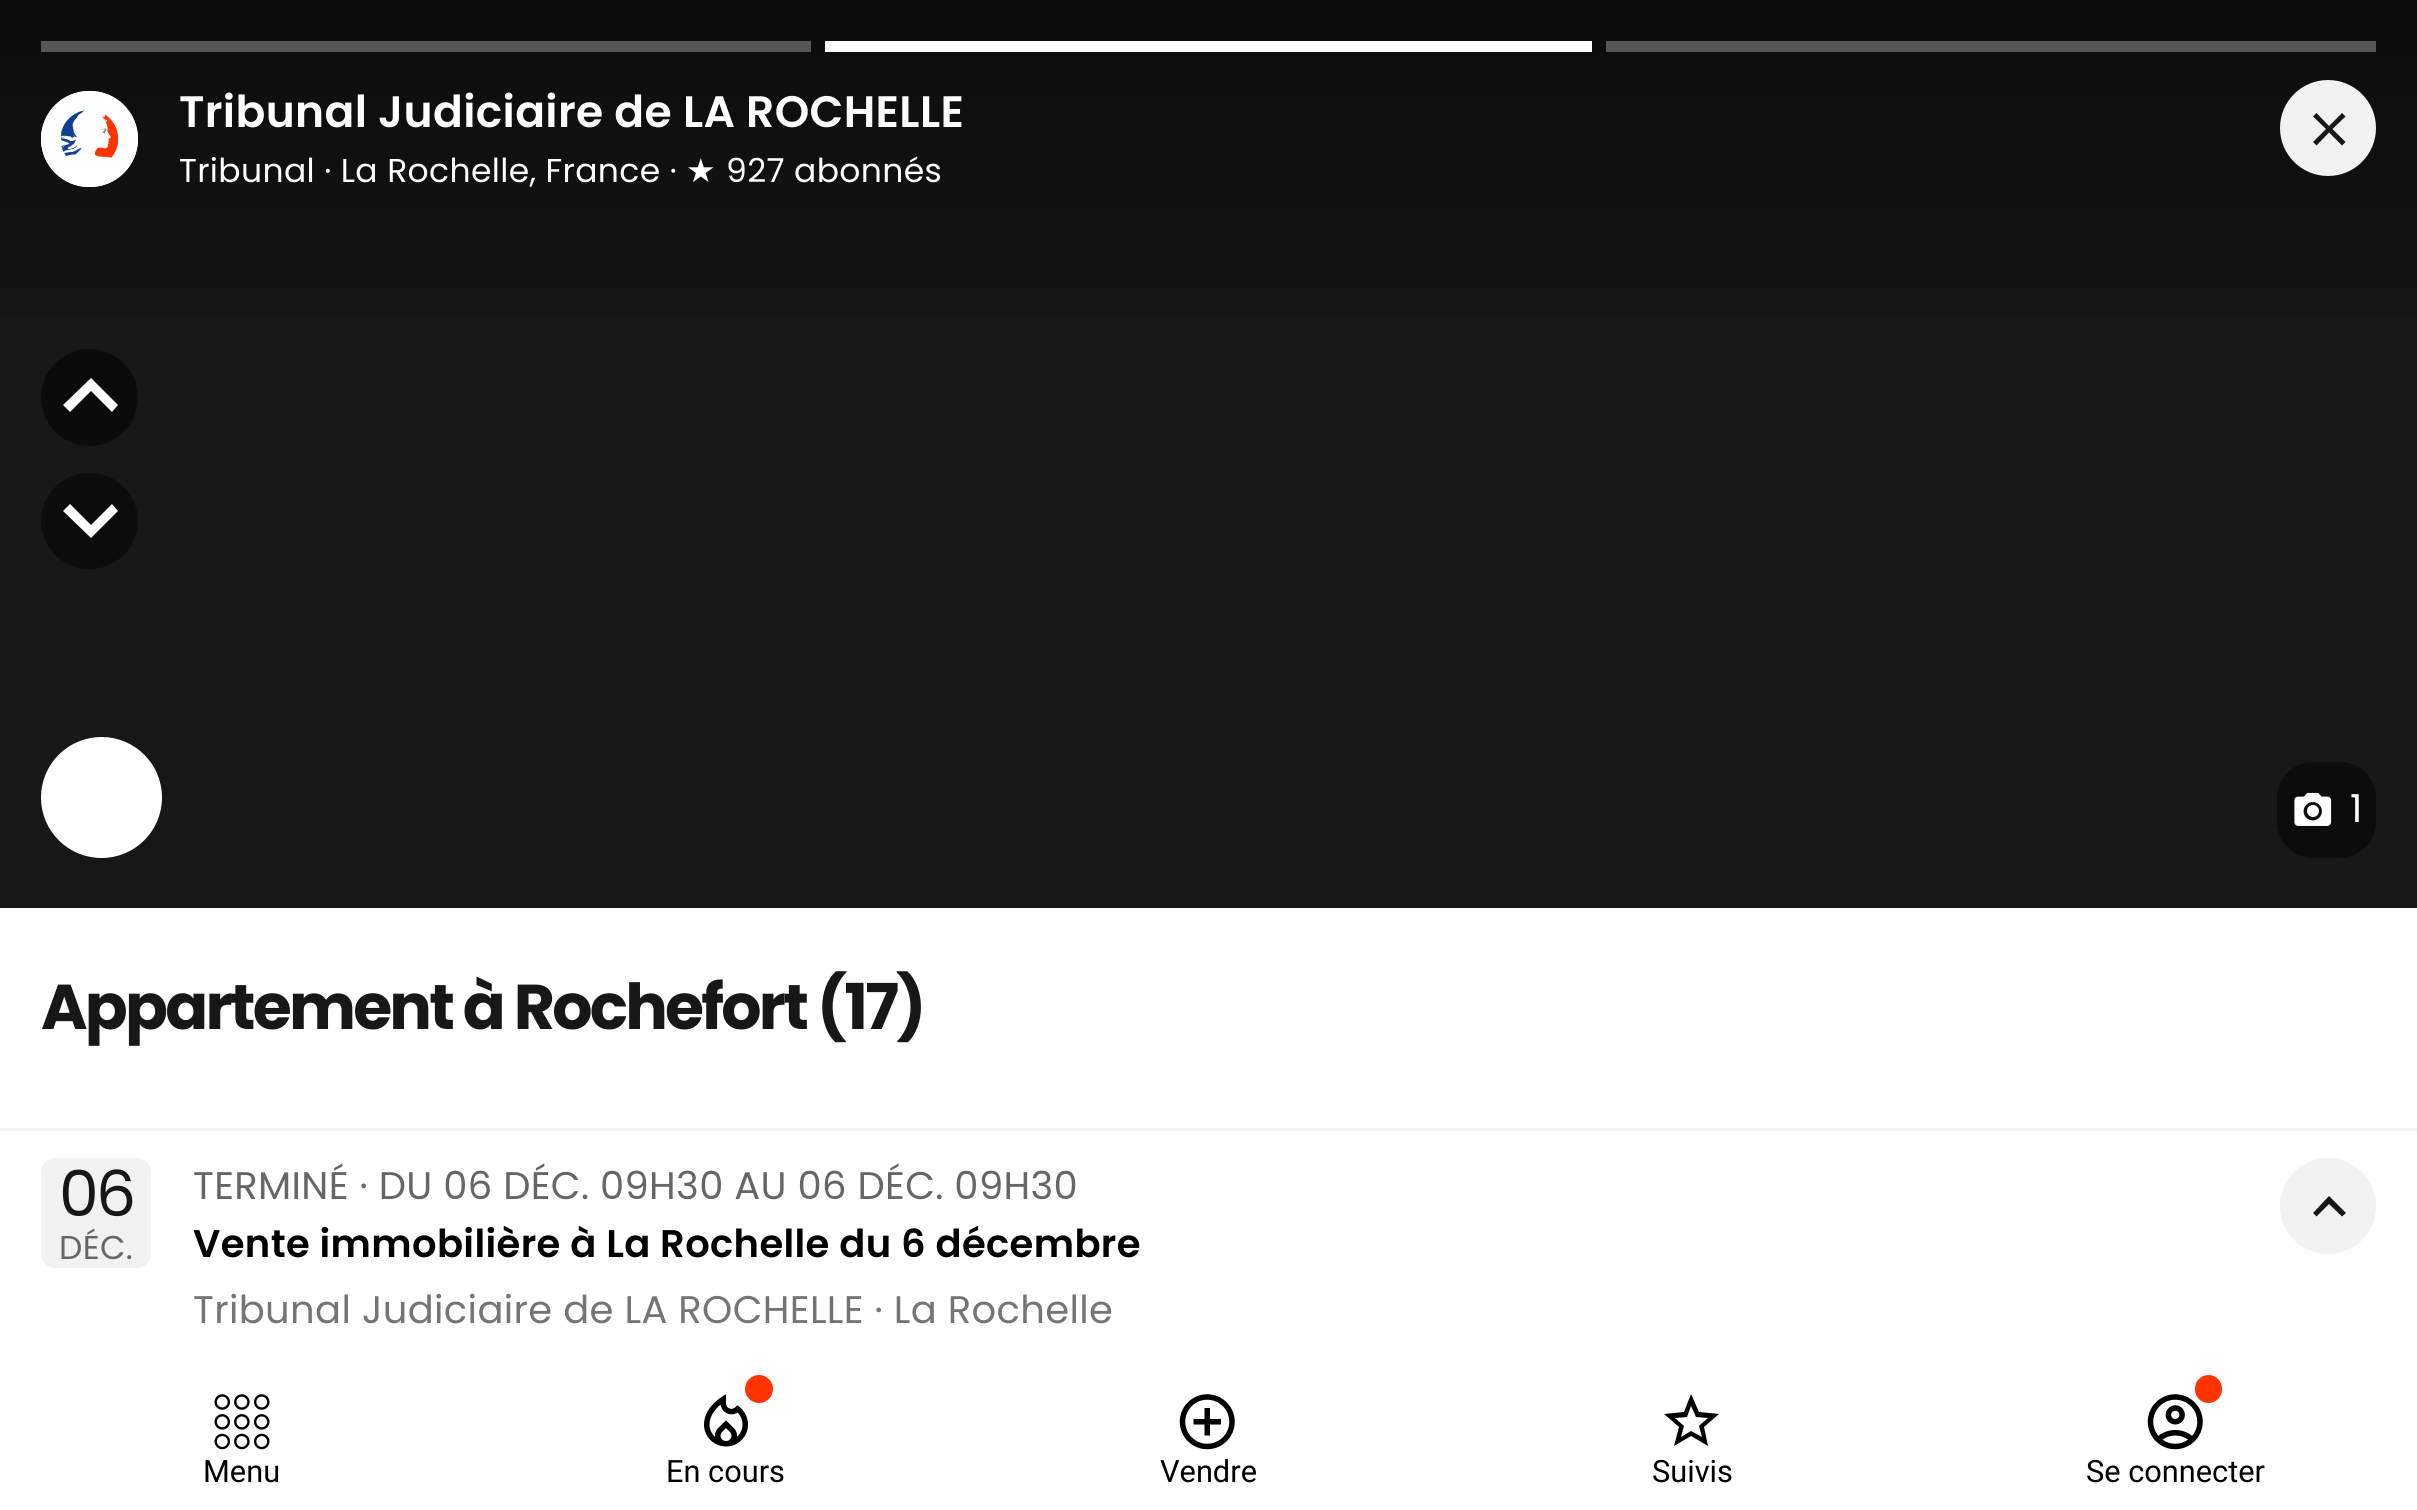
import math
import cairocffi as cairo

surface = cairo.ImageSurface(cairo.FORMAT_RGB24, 2417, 1510)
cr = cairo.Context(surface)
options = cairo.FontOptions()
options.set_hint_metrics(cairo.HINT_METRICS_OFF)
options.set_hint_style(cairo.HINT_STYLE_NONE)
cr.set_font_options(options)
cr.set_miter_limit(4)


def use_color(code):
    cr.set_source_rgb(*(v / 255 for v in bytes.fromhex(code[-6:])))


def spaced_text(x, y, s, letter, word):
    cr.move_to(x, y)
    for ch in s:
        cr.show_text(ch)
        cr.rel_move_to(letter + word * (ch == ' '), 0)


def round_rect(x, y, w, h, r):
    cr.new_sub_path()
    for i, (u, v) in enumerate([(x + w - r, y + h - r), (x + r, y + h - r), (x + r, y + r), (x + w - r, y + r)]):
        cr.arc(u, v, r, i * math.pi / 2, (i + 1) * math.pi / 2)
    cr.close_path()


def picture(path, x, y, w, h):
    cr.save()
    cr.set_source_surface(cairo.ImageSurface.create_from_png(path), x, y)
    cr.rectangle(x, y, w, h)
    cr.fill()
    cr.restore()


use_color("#171717")
cr.paint()
gradient = cairo.LinearGradient(1209, 413, 1209, 0)
gradient.add_color_stop_rgba(0, 0.09, 0.09, 0.09, 1)
gradient.add_color_stop_rgba(1, 0.047, 0.047, 0.047, 1)
cr.set_source(gradient)
cr.rectangle(0, 0, 2417, 319)
cr.fill()
use_color("#565656")
cr.rectangle(41, 41, 770, 11)
cr.fill()
use_color("#ffffff")
cr.rectangle(825, 41, 767, 11)
cr.fill()
use_color("#565656")
cr.rectangle(1606, 41, 770, 11)
cr.fill()
use_color("#ffffff")
round_rect(41, 91, 97, 96, 48)
cr.fill()
picture("img1.png", 61, 110, 57, 48)
round_rect(42.5, 92.5, 94, 93, 46.5)
cr.set_line_width(3)
cr.stroke()
cr.select_font_face("Poppins SemiBold")
cr.set_font_size(44)
spaced_text(179, 127, "Tribunal Judiciaire de LA ROCHELLE", 0.35, 0)
cr.select_font_face("Poppins")
cr.set_font_size(33)
spaced_text(179, 182, "Tribunal · La Rochelle, France ·", 0.35, 0)
cr.select_font_face("DejaVu Sans")
spaced_text(686, 182, "★", 0.35, 0)
cr.select_font_face("Poppins")
spaced_text(726, 182, "927 abonnés", 0.35, 0)
use_color("#f2f2f2")
cr.new_path()
cr.arc(2328, 128, 48, 0, 2 * math.pi)
cr.fill()
use_color("#171717")
cr.new_path()
cr.move_to(2345.5, 116.5)
cr.line_to(2342, 113)
cr.line_to(2329, 126)
cr.line_to(2316.5, 113)
cr.line_to(2313, 116.5)
cr.line_to(2326, 129)
cr.line_to(2313, 142)
cr.line_to(2316.5, 145.5)
cr.line_to(2329, 132.5)
cr.line_to(2342, 145.5)
cr.line_to(2345.5, 142)
cr.line_to(2332.5, 129)
cr.close_path()
cr.fill()
use_color("#0b0b0b")
cr.arc(89.5, 397.5, 48.5, 0, 2 * math.pi)
cr.fill()
use_color("#ffffff")
cr.new_path()
cr.move_to(70, 412)
cr.line_to(91, 391)
cr.line_to(112, 412)
cr.line_to(118, 405)
cr.line_to(91, 378)
cr.line_to(63, 405)
cr.close_path()
cr.fill()
use_color("#0c0c0c")
round_rect(41, 473, 97, 96, 48)
cr.fill()
use_color("#ffffff")
cr.new_path()
cr.move_to(70, 504)
cr.line_to(91, 525)
cr.line_to(112, 504)
cr.line_to(118, 511)
cr.line_to(91, 538)
cr.line_to(63, 511)
cr.close_path()
cr.fill()
cr.arc(101.5, 797.5, 57.5, 0, 2 * math.pi)
cr.fill_preserve()
cr.set_line_width(6)
cr.stroke()
use_color("#0c0c0c")
round_rect(2277, 762, 99, 96, 36)
cr.fill()
picture("img2.png", 2294, 792, 38, 34)
cr.set_font_size(38.5)
use_color("#ffffff")
spaced_text(2350, 822, "1", 0.35, 0)
cr.rectangle(0, 908, 2417, 220)
cr.fill()
cr.select_font_face("Poppins", cairo.FONT_SLANT_NORMAL, cairo.FONT_WEIGHT_BOLD)
cr.set_font_size(63.25)
use_color("#171717")
spaced_text(41, 1029, "Appartement à Rochefort (17)", -2.75, 0)
use_color("#ffffff")
cr.rectangle(0, 1131, 2417, 379)
cr.fill()
use_color("#f2f2f2")
cr.rectangle(0, 1128, 2417, 3)
cr.fill()
round_rect(42.5, 1159.5, 107, 107, 12.5)
cr.fill_preserve()
cr.set_line_width(3)
cr.stroke()
cr.select_font_face("Poppins")
use_color("#171717")
spaced_text(59, 1216, "06", -2.75, 0)
cr.set_font_size(33)
use_color("#666666")
spaced_text(59, 1259, "DÉC.", 0.35, 0)
cr.set_font_size(38.5)
spaced_text(193, 1199, "TERMINÉ · DU 06 DÉC. 09H30 AU 06 DÉC. 09H30", 0.35, 0)
cr.select_font_face("Poppins SemiBold")
use_color("#000000")
spaced_text(193, 1257, "Vente immobilière à La Rochelle du 6 décembre", 0.35, 0)
cr.select_font_face("Poppins")
use_color("#757575")
spaced_text(193, 1323, "Tribunal Judiciaire de LA ROCHELLE · La Rochelle", 0.35, 0)
use_color("#f2f2f2")
cr.new_path()
cr.arc(2328, 1206, 48, 0, 2 * math.pi)
cr.fill()
use_color("#171717")
cr.new_path()
cr.move_to(2329, 1196)
cr.line_to(2313, 1213)
cr.line_to(2316.5, 1216.5)
cr.line_to(2329, 1204)
cr.line_to(2342, 1216.5)
cr.line_to(2346, 1213)
cr.close_path()
cr.fill()
picture("img3.png", 214, 1394, 56, 56)
cr.select_font_face("Roboto")
cr.set_font_size(30.75)
use_color("#000000")
cr.move_to(203, 1482)
cr.show_text("Menu")
picture("img4.png", 704, 1394, 44, 53)
use_color("#ff3401")
cr.arc(759, 1389, 14, 0, 2 * math.pi)
cr.fill()
use_color("#000000")
cr.move_to(666, 1482)
cr.show_text("En cours")
picture("img5.png", 1179, 1394, 56, 56)
cr.move_to(1160, 1482)
cr.show_text("Vendre")
cr.new_path()
cr.move_to(1719, 1414)
cr.line_to(1699, 1412)
cr.line_to(1691, 1394)
cr.line_to(1684, 1412)
cr.line_to(1664, 1414)
cr.line_to(1679, 1427)
cr.line_to(1674, 1446)
cr.line_to(1691, 1436)
cr.line_to(1708, 1446)
cr.line_to(1704, 1427)
cr.close_path()
cr.move_to(1691, 1431)
cr.line_to(1681, 1437)
cr.line_to(1684, 1426)
cr.line_to(1675, 1418)
cr.line_to(1687, 1417)
cr.line_to(1691, 1406)
cr.line_to(1696, 1417)
cr.line_to(1708, 1418)
cr.line_to(1699, 1426)
cr.line_to(1702, 1437)
cr.close_path()
cr.fill()
cr.move_to(1652, 1482)
cr.show_text("Suivis")
picture("img6.png", 2147, 1394, 56, 56)
use_color("#ff3401")
round_rect(2195, 1375, 27, 28, 13.5)
cr.fill()
use_color("#000000")
cr.move_to(2086, 1482)
cr.show_text("Se connecter")
surface.write_to_png("result.png")
